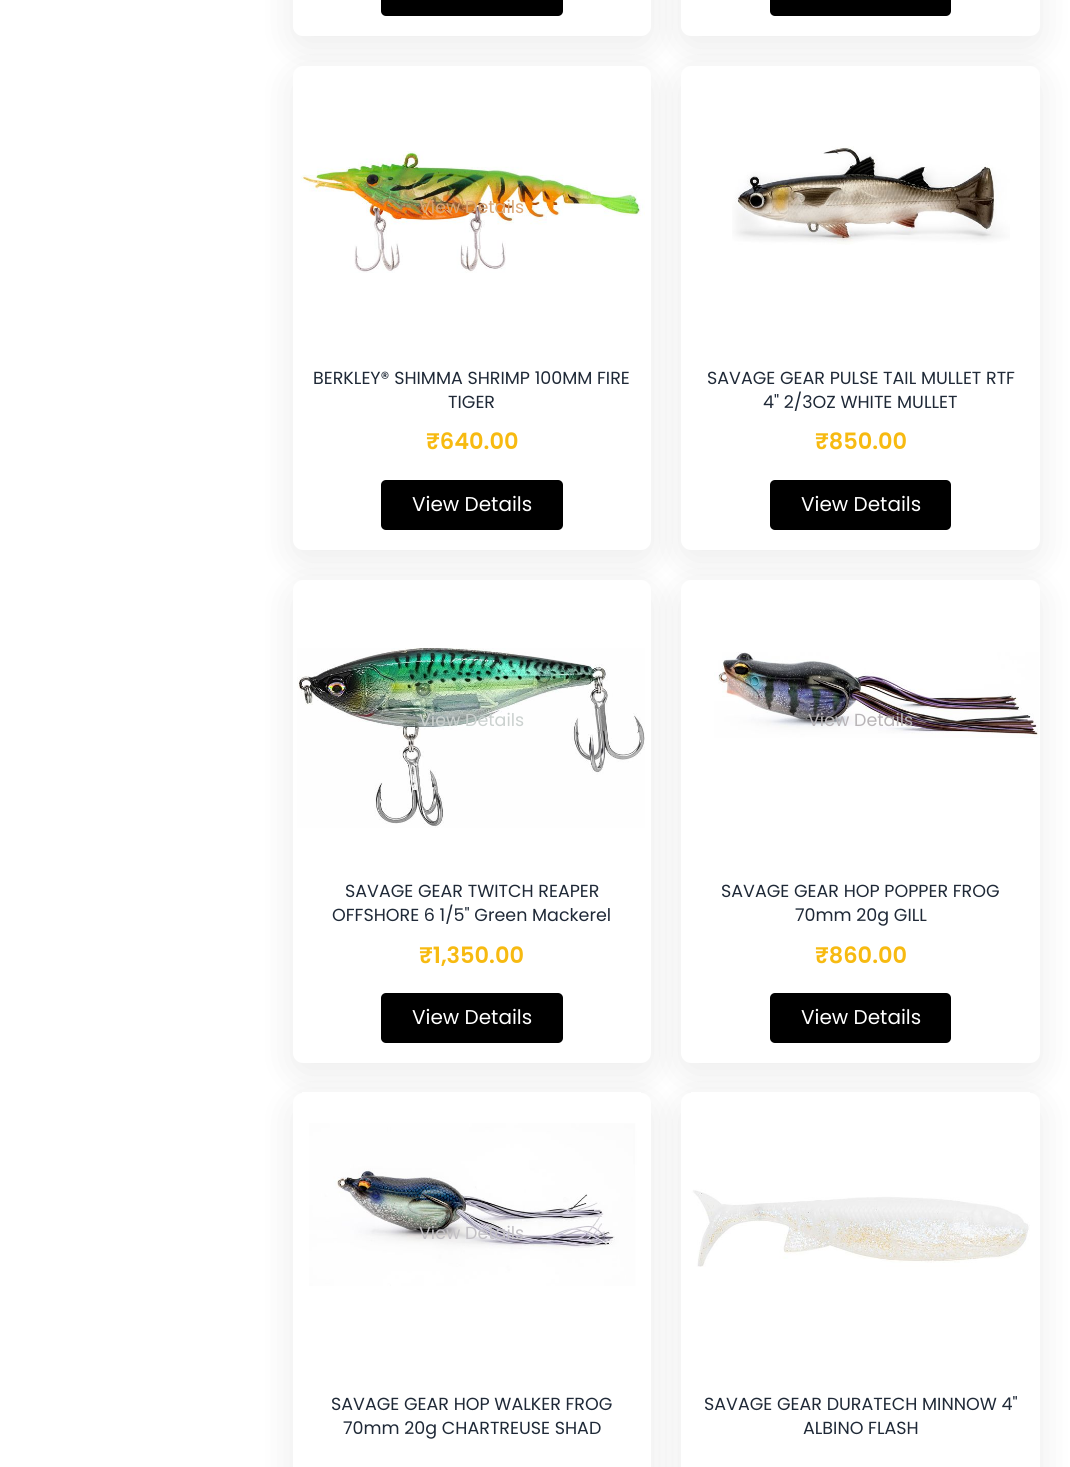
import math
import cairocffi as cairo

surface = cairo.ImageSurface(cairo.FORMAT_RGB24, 1070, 1467)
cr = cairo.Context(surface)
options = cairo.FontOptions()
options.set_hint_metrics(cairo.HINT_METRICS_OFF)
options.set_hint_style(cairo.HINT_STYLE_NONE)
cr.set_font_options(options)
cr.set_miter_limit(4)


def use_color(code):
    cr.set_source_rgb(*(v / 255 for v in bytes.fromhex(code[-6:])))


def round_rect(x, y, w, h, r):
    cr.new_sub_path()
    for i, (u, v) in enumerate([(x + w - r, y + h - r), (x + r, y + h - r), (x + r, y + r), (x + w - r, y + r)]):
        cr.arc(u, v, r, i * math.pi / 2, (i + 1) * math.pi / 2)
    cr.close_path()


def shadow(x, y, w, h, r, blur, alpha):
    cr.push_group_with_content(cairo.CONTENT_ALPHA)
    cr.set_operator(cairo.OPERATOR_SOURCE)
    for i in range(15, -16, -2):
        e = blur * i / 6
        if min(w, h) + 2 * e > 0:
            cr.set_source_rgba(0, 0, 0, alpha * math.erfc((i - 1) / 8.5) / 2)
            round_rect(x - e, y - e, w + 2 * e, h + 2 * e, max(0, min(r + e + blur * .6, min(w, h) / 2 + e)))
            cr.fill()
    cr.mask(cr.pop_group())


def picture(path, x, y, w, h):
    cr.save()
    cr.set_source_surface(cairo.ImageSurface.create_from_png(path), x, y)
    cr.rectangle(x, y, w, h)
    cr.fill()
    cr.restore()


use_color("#ffffff")
cr.paint()
cr.save()
cr.set_fill_rule(cairo.FILL_RULE_EVEN_ODD)
cr.new_path()
cr.move_to(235, 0)
cr.line_to(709, 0)
cr.line_to(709, 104)
cr.line_to(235, 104)
cr.close_path()
cr.move_to(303, -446)
cr.line_to(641, -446)
cr.curve_to(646.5, -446, 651, -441.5, 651, -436)
cr.line_to(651, 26)
cr.curve_to(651, 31.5, 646.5, 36, 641, 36)
cr.line_to(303, 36)
cr.curve_to(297.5, 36, 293, 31.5, 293, 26)
cr.line_to(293, -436)
cr.curve_to(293, -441.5, 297.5, -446, 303, -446)
cr.close_path()
cr.clip()
use_color("#000000")
shadow(293, -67, 358, 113, 10, 19, 0.08)
cr.restore()
use_color("#000000")
round_rect(381, -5, 182, 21, 5)
cr.fill()
use_color("#000000")
shadow(681, -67, 359, 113, 10, 19, 0.08)
use_color("#ffffff")
round_rect(681, -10, 359, 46, 10)
cr.fill()
use_color("#000000")
round_rect(770, -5, 181, 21, 5)
cr.fill()
use_color("#000000")
shadow(293, 76, 358, 484, 10, 19, 0.08)
use_color("#ffffff")
round_rect(293, 66, 358, 484, 10)
cr.fill()
picture("img1.png", 300, 151, 345, 122)
cr.select_font_face("Poppins")
cr.set_font_size(17.5)
use_color("#daa776")
cr.move_to(419, 213)
cr.show_text("View Details")
use_color("#1f2937")
cr.move_to(313, 384)
cr.show_text("BERKLEY® SHIMMA SHRIMP 100MM FIRE")
cr.move_to(448, 408)
cr.show_text("TIGER")
cr.select_font_face("Poppins SemiBold")
cr.set_font_size(22.5)
use_color("#f7ba11")
cr.move_to(426, 449)
cr.show_text("₹640.00")
use_color("#000000")
round_rect(381, 480, 182, 50, 5)
cr.fill()
cr.select_font_face("Poppins")
cr.set_font_size(20)
use_color("#ffffff")
cr.move_to(412, 511)
cr.show_text("View Details")
use_color("#000000")
shadow(681, 76, 359, 484, 10, 19, 0.08)
use_color("#ffffff")
round_rect(681, 66, 359, 484, 10)
cr.fill()
picture("img2.png", 732, 146, 278, 99)
cr.set_font_size(17.5)
use_color("#1f2937")
cr.move_to(707, 384)
cr.show_text("SAVAGE GEAR PULSE TAIL MULLET RTF")
cr.move_to(763, 408)
cr.show_text("4\" 2/3OZ WHITE MULLET")
cr.select_font_face("Poppins SemiBold")
cr.set_font_size(22.5)
use_color("#f7ba11")
cr.move_to(815, 449)
cr.show_text("₹850.00")
use_color("#000000")
round_rect(770, 480, 181, 50, 5)
cr.fill()
cr.select_font_face("Poppins")
cr.set_font_size(20)
use_color("#ffffff")
cr.move_to(801, 511)
cr.show_text("View Details")
use_color("#000000")
shadow(293, 590, 358, 483, 10, 19, 0.08)
use_color("#ffffff")
round_rect(293, 580, 358, 483, 10)
cr.fill()
picture("img3.png", 297, 648, 348, 180)
cr.set_font_size(17.5)
use_color("#cbd1cf")
cr.move_to(419, 726)
cr.show_text("View Details")
use_color("#1f2937")
cr.move_to(345, 897)
cr.show_text("SAVAGE GEAR TWITCH REAPER")
cr.move_to(332, 921)
cr.show_text("OFFSHORE 6 1/5\" Green Mackerel")
cr.select_font_face("Poppins SemiBold")
cr.set_font_size(22.5)
use_color("#f7ba11")
cr.move_to(419, 963)
cr.show_text("₹1,350.00")
use_color("#000000")
round_rect(381, 993, 182, 50, 5)
cr.fill()
cr.select_font_face("Poppins")
cr.set_font_size(20)
use_color("#ffffff")
cr.move_to(412, 1024)
cr.show_text("View Details")
use_color("#000000")
shadow(681, 590, 359, 483, 10, 19, 0.08)
use_color("#ffffff")
round_rect(681, 580, 359, 483, 10)
cr.fill()
picture("img4.png", 714, 652, 325, 86)
cr.set_font_size(17.5)
use_color("#b8b4b7")
cr.move_to(808, 726)
cr.show_text("View Details")
use_color("#1f2937")
cr.move_to(721, 897)
cr.show_text("SAVAGE GEAR HOP POPPER FROG")
cr.move_to(795, 921)
cr.show_text("70mm 20g GILL")
cr.select_font_face("Poppins SemiBold")
cr.set_font_size(22.5)
use_color("#f7ba11")
cr.move_to(815, 963)
cr.show_text("₹860.00")
use_color("#000000")
round_rect(770, 993, 181, 50, 5)
cr.fill()
cr.select_font_face("Poppins")
cr.set_font_size(20)
use_color("#ffffff")
cr.move_to(801, 1024)
cr.show_text("View Details")
use_color("#000000")
shadow(293, 1103, 358, 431, 10, 19, 0.08)
use_color("#ffffff")
round_rect(293, 1093, 358, 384, 10)
cr.fill()
picture("img5.png", 302, 1092, 339, 194)
cr.set_font_size(17.5)
use_color("#c2c0c4")
cr.move_to(419, 1239)
cr.show_text("View Details")
use_color("#1f2937")
cr.move_to(331, 1410)
cr.show_text("SAVAGE GEAR HOP WALKER FROG")
cr.move_to(343, 1434)
cr.show_text("70mm 20g CHARTREUSE SHAD")
use_color("#000000")
shadow(681, 1103, 359, 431, 10, 19, 0.08)
use_color("#ffffff")
round_rect(681, 1093, 359, 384, 10)
cr.fill()
picture("img6.png", 691, 1092, 339, 175)
use_color("#1f2937")
cr.move_to(704, 1410)
cr.show_text("SAVAGE GEAR DURATECH MINNOW 4\"")
cr.move_to(803, 1434)
cr.show_text("ALBINO FLASH")
surface.write_to_png("result.png")
